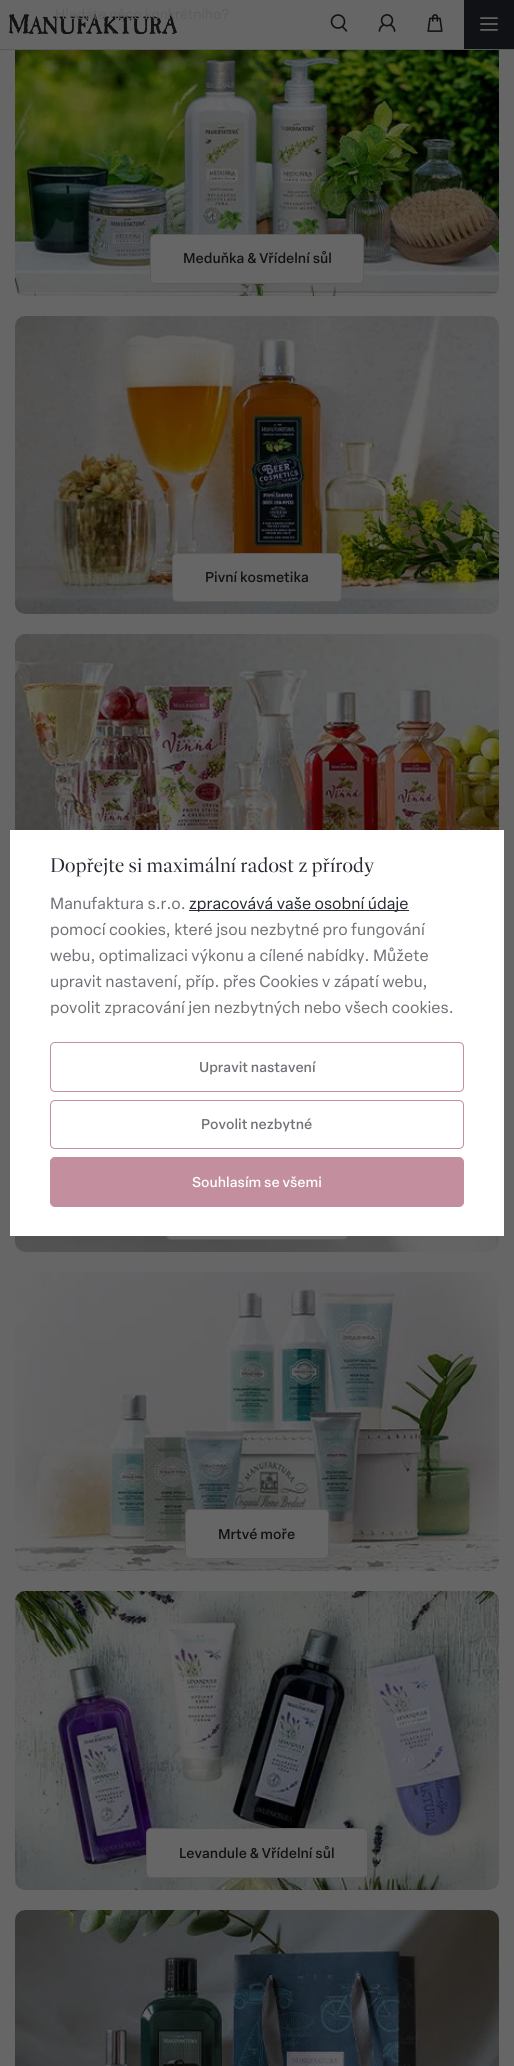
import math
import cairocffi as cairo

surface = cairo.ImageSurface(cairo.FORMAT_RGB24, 514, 2066)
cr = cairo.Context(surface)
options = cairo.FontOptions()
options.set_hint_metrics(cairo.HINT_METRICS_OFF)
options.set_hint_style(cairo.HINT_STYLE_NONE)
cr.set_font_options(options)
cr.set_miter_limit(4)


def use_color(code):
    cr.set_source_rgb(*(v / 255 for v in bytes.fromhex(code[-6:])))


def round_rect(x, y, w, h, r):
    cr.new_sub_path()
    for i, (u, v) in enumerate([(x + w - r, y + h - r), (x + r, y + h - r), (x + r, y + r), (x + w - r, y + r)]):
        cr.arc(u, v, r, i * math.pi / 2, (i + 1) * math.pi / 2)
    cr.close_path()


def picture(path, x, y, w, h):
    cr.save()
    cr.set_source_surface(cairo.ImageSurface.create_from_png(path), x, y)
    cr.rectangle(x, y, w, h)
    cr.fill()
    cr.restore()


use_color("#666666")
cr.paint()
use_color("#595959")
cr.rectangle(0, 49, 514, 1)
cr.fill()
picture("img1.png", 9, 14, 168, 20)
picture("img2.png", 330, 14, 18, 18)
picture("img3.png", 378, 14, 18, 18)
picture("img4.png", 427, 14, 16, 18)
use_color("#101114")
cr.rectangle(464, 0, 50, 49)
cr.fill()
picture("img5.png", 480, 17, 18, 14)
cr.select_font_face("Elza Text")
cr.set_font_size(14)
use_color("#5c5c5c")
cr.move_to(55, 19)
cr.show_text("Hledáte něco konkrétního?")
picture("img6.png", 15, 50, 484, 246)
use_color("#666666")
round_rect(150.5, 234.5, 213, 49, 4.5)
cr.fill_preserve()
use_color("#595959")
cr.set_line_width(1)
cr.stroke()
cr.select_font_face("Elza Text Medium")
use_color("#101114")
cr.move_to(183, 263)
cr.show_text("Meduňka & Vřídelní sůl")
picture("img7.png", 15, 316, 484, 298)
use_color("#666666")
round_rect(172.5, 553.5, 169, 48, 4.5)
cr.fill_preserve()
use_color("#595959")
cr.stroke()
use_color("#101114")
cr.move_to(205, 582)
cr.show_text("Pivní kosmetika")
picture("img8.png", 15, 634, 484, 196)
picture("img9.png", 15, 1236, 484, 16)
use_color("#666666")
round_rect(166.5, 1191.5, 181, 48, 4.5)
cr.fill_preserve()
use_color("#595959")
cr.stroke()
picture("img10.png", 15, 1272, 484, 299)
use_color("#666666")
round_rect(185.5, 1509.5, 143, 49, 4.5)
cr.fill_preserve()
use_color("#595959")
cr.stroke()
use_color("#101114")
cr.move_to(218, 1539)
cr.show_text("Mrtvé moře")
picture("img11.png", 15, 1591, 484, 299)
use_color("#666666")
round_rect(146.5, 1828.5, 221, 49, 4.5)
cr.fill_preserve()
use_color("#595959")
cr.stroke()
use_color("#101114")
cr.move_to(179, 1858)
cr.show_text("Levandule & Vřídelní sůl")
picture("img12.png", 15, 1910, 484, 156)
use_color("#ffffff")
cr.rectangle(10, 830, 494, 406)
cr.fill()
cr.select_font_face("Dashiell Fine")
cr.set_font_size(20)
use_color("#282a33")
cr.move_to(50, 872)
cr.show_text("Dopřejte si maximální radost z přírody")
cr.select_font_face("Elza Text")
cr.set_font_size(16)
use_color("#707177")
cr.move_to(50, 909)
cr.show_text("Manufaktura s.r.o.")
use_color("#282a33")
cr.rectangle(189, 910, 220, 1)
cr.fill()
cr.move_to(189, 909)
cr.show_text("zpracovává vaše osobní údaje")
use_color("#707177")
cr.move_to(50, 935)
cr.show_text("pomocí cookies, které jsou nezbytné pro fungování")
cr.move_to(50, 961)
cr.show_text("webu, optimalizaci výkonu a cílené nabídky. Můžete")
cr.move_to(50, 987)
cr.show_text("upravit nastavení, příp. přes Cookies v zápatí webu,")
cr.move_to(50, 1013)
cr.show_text("povolit zpracování jen nezbytných nebo všech cookies.")
round_rect(50.5, 1042.5, 413, 49, 4.5)
use_color("#c38f9f")
cr.stroke()
cr.select_font_face("Elza Text Medium")
cr.set_font_size(14)
use_color("#707177")
cr.move_to(199, 1072)
cr.show_text("Upravit nastavení")
round_rect(50.5, 1100.5, 413, 48, 4.5)
use_color("#c38f9f")
cr.stroke()
use_color("#707177")
cr.move_to(201, 1129)
cr.show_text("Povolit nezbytné")
use_color("#c38f9f")
round_rect(50.5, 1157.5, 413, 49, 4.5)
cr.fill_preserve()
cr.stroke()
use_color("#ffffff")
cr.move_to(192, 1187)
cr.show_text("Souhlasím se všemi")
surface.write_to_png("result.png")
